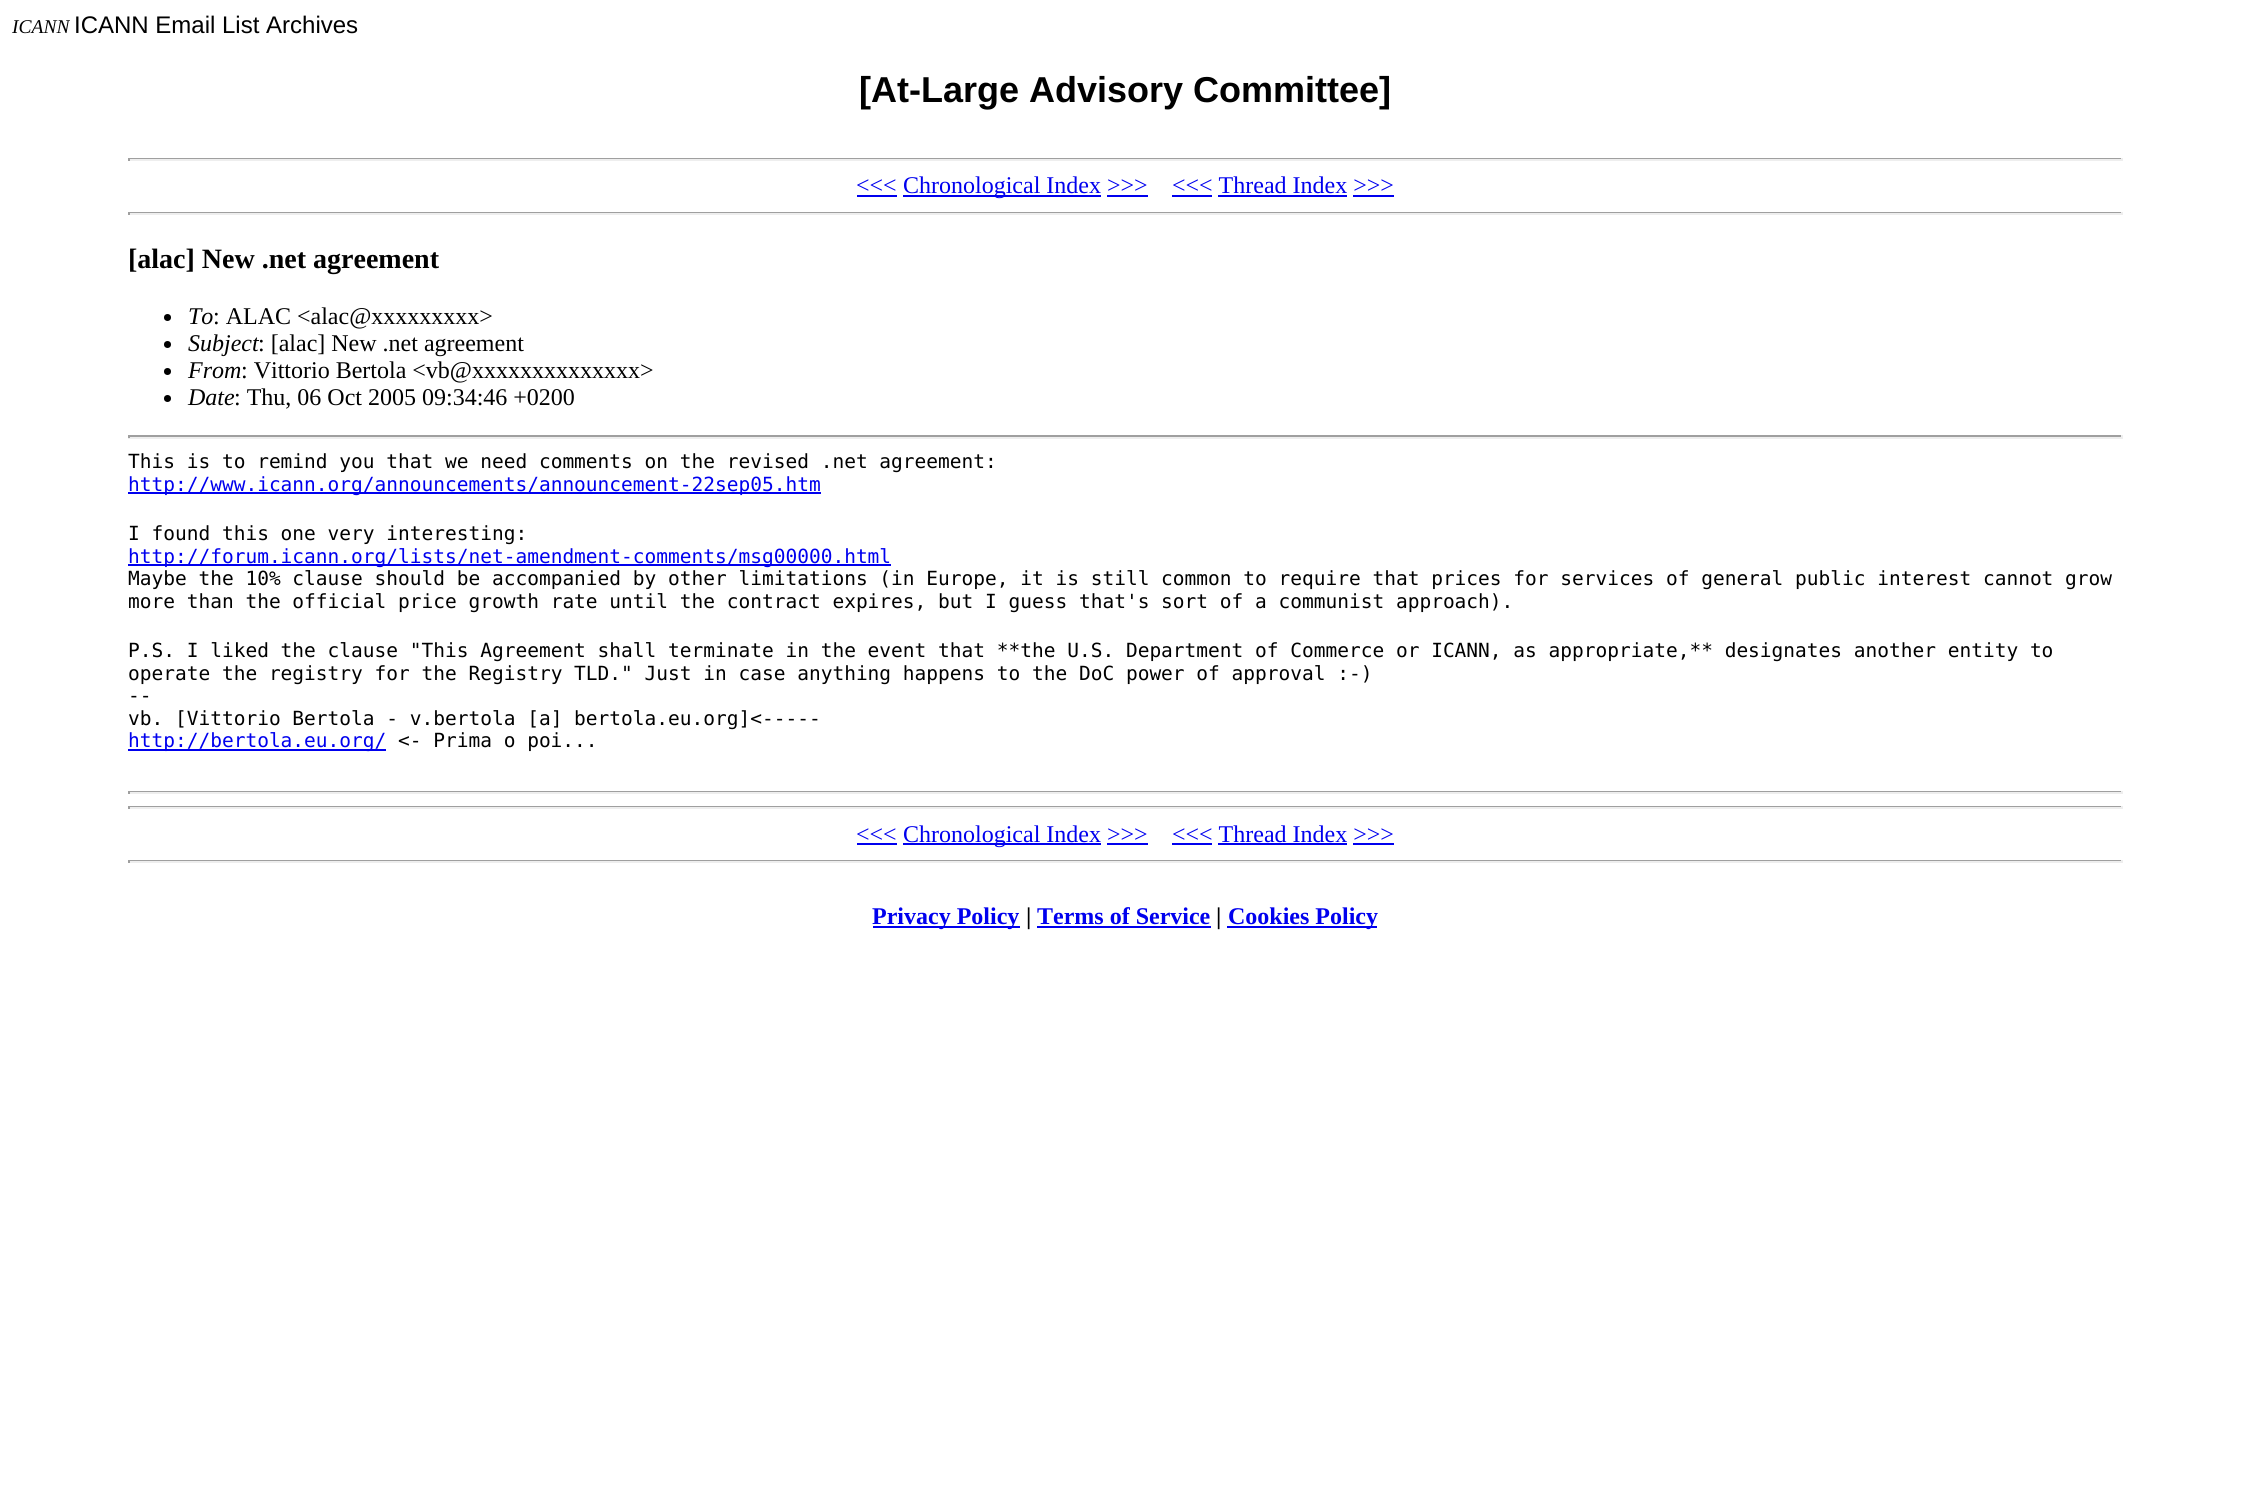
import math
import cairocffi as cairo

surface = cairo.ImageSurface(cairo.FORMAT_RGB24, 2249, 1502)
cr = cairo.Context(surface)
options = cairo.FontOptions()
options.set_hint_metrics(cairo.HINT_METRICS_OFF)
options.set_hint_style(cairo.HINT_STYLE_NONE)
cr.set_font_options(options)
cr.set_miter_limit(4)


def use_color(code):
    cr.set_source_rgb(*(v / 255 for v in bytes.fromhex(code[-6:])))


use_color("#ffffff")
cr.paint()
cr.select_font_face("Liberation Serif", cairo.FONT_SLANT_ITALIC)
cr.set_font_size(19.5)
use_color("#000000")
cr.move_to(12, 33)
cr.show_text("ICANN")
cr.select_font_face("Liberation Sans")
cr.set_font_size(24)
cr.move_to(74, 33)
cr.show_text("ICANN Email List Archives")
cr.select_font_face("Liberation Sans", cairo.FONT_SLANT_NORMAL, cairo.FONT_WEIGHT_BOLD)
cr.set_font_size(36)
cr.move_to(859, 102)
cr.show_text("[At-Large Advisory Committee]")
use_color("#9f9f9f")
cr.rectangle(128, 158, 1995, 1)
cr.fill()
use_color("#eeeeee")
cr.rectangle(2121, 158, 2, 3)
cr.fill()
cr.rectangle(128, 159, 1995, 2)
cr.fill()
use_color("#9f9f9f")
cr.rectangle(128, 158, 2, 3)
cr.fill()
cr.select_font_face("Liberation Serif")
cr.set_font_size(24)
use_color("#0000ee")
cr.move_to(856, 193)
cr.show_text("<<<")
cr.rectangle(857, 195, 40, 2)
cr.fill()
cr.rectangle(903, 195, 198, 2)
cr.fill()
cr.move_to(903, 193)
cr.show_text("Chronological Index >>>")
cr.move_to(1172, 193)
cr.show_text("<<< Thread Index >>>")
cr.rectangle(1172, 195, 40, 2)
cr.fill()
cr.rectangle(1107, 195, 41, 2)
cr.fill()
cr.rectangle(1218, 195, 129, 2)
cr.fill()
cr.rectangle(1353, 195, 41, 2)
cr.fill()
use_color("#9f9f9f")
cr.rectangle(128, 212, 1995, 1)
cr.fill()
use_color("#eeeeee")
cr.rectangle(2121, 212, 2, 3)
cr.fill()
cr.rectangle(128, 213, 1995, 2)
cr.fill()
use_color("#9f9f9f")
cr.rectangle(128, 212, 2, 3)
cr.fill()
cr.select_font_face("Liberation Serif", cairo.FONT_SLANT_NORMAL, cairo.FONT_WEIGHT_BOLD)
cr.set_font_size(28)
use_color("#000000")
cr.move_to(128, 268)
cr.show_text("[alac] New .net agreement")
cr.new_path()
cr.arc(167.5, 317.5, 3.5, 0, 2 * math.pi)
cr.fill()
cr.select_font_face("Liberation Serif", cairo.FONT_SLANT_ITALIC)
cr.set_font_size(24)
cr.move_to(188, 324)
cr.show_text("To")
cr.select_font_face("Liberation Serif")
cr.move_to(213, 324)
cr.show_text(": ALAC <alac@xxxxxxxxx>")
cr.new_path()
cr.arc(167.5, 344.5, 3.5, 0, 2 * math.pi)
cr.fill()
cr.select_font_face("Liberation Serif", cairo.FONT_SLANT_ITALIC)
cr.move_to(188, 351)
cr.show_text("Subject")
cr.select_font_face("Liberation Serif")
cr.move_to(258, 351)
cr.show_text(": [alac] New .net agreement")
cr.new_path()
cr.arc(167.5, 371.5, 3.5, 0, 2 * math.pi)
cr.fill()
cr.select_font_face("Liberation Serif", cairo.FONT_SLANT_ITALIC)
cr.move_to(188, 378)
cr.show_text("From")
cr.select_font_face("Liberation Serif")
cr.move_to(241, 378)
cr.show_text(": Vittorio Bertola <vb@xxxxxxxxxxxxxx>")
cr.new_path()
cr.arc(167.5, 398.5, 3.5, 0, 2 * math.pi)
cr.fill()
cr.select_font_face("Liberation Serif", cairo.FONT_SLANT_ITALIC)
cr.move_to(188, 405)
cr.show_text("Date")
cr.select_font_face("Liberation Serif")
cr.move_to(234, 405)
cr.show_text(": Thu, 06 Oct 2005 09:34:46 +0200")
use_color("#9f9f9f")
cr.rectangle(128, 435, 1995, 2)
cr.fill()
use_color("#eeeeee")
cr.rectangle(2121, 435, 2, 3)
cr.fill()
cr.rectangle(128, 437, 1995, 2)
cr.fill()
use_color("#9f9f9f")
cr.rectangle(128, 435, 2, 3)
cr.fill()
cr.select_font_face("DejaVu Sans Mono")
cr.set_font_size(19.5)
use_color("#000000")
cr.move_to(128, 468)
cr.show_text("This is to remind you that we need comments on the revised .net agreement:")
use_color("#0000ee")
cr.rectangle(128, 492, 693, 2)
cr.fill()
cr.move_to(128, 491)
cr.show_text("http://www.icann.org/announcements/announcement-22sep05.htm")
use_color("#000000")
cr.move_to(128, 540)
cr.show_text("I found this one very interesting:")
use_color("#0000ee")
cr.rectangle(128, 564, 763, 2)
cr.fill()
cr.move_to(128, 563)
cr.show_text("http://forum.icann.org/lists/net-amendment-comments/msg00000.html")
use_color("#000000")
cr.move_to(128, 585)
cr.show_text("Maybe the 10% clause should be accompanied by other limitations (in Europe, it is still common to require that prices for services of general public interest cannot grow")
cr.move_to(128, 608)
cr.show_text("more than the official price growth rate until the contract expires, but I guess that's sort of a communist approach).")
cr.move_to(128, 657)
cr.show_text("P.S. I liked the clause \"This Agreement shall terminate in the event that **the U.S. Department of Commerce or ICANN, as appropriate,** designates another entity to")
cr.move_to(128, 680)
cr.show_text("operate the registry for the Registry TLD.\" Just in case anything happens to the DoC power of approval :-)")
cr.move_to(128, 702)
cr.show_text("--")
cr.move_to(128, 725)
cr.show_text("vb. [Vittorio Bertola - v.bertola [a] bertola.eu.org]<-----")
use_color("#0000ee")
cr.rectangle(128, 749, 258, 2)
cr.fill()
cr.move_to(128, 747)
cr.show_text("http://bertola.eu.org/")
use_color("#000000")
cr.move_to(398, 747)
cr.show_text("<- Prima o poi...")
use_color("#9f9f9f")
cr.rectangle(128, 791, 1995, 1)
cr.fill()
use_color("#eeeeee")
cr.rectangle(2121, 791, 2, 3)
cr.fill()
cr.rectangle(128, 792, 1995, 2)
cr.fill()
use_color("#9f9f9f")
cr.rectangle(128, 791, 2, 3)
cr.fill()
cr.rectangle(128, 806, 1995, 1)
cr.fill()
use_color("#eeeeee")
cr.rectangle(2121, 806, 2, 3)
cr.fill()
cr.rectangle(128, 807, 1995, 2)
cr.fill()
use_color("#9f9f9f")
cr.rectangle(128, 806, 2, 3)
cr.fill()
cr.select_font_face("Liberation Serif")
cr.set_font_size(24)
use_color("#0000ee")
cr.move_to(856, 842)
cr.show_text("<<<")
cr.rectangle(857, 843, 40, 2)
cr.fill()
cr.rectangle(903, 843, 198, 2)
cr.fill()
cr.move_to(903, 842)
cr.show_text("Chronological Index >>>")
cr.move_to(1172, 842)
cr.show_text("<<< Thread Index >>>")
cr.rectangle(1172, 843, 40, 2)
cr.fill()
cr.rectangle(1107, 843, 41, 2)
cr.fill()
cr.rectangle(1218, 843, 129, 2)
cr.fill()
cr.rectangle(1353, 843, 41, 2)
cr.fill()
use_color("#9f9f9f")
cr.rectangle(128, 860, 1995, 1)
cr.fill()
use_color("#eeeeee")
cr.rectangle(2121, 860, 2, 3)
cr.fill()
cr.rectangle(128, 861, 1995, 2)
cr.fill()
use_color("#9f9f9f")
cr.rectangle(128, 860, 2, 3)
cr.fill()
use_color("#0000ee")
cr.rectangle(873, 926, 147, 2)
cr.fill()
cr.select_font_face("Liberation Serif", cairo.FONT_SLANT_NORMAL, cairo.FONT_WEIGHT_BOLD)
cr.move_to(872, 924)
cr.show_text("Privacy Policy")
use_color("#000000")
cr.move_to(1026, 924)
cr.show_text("|")
use_color("#0000ee")
cr.move_to(1037, 924)
cr.show_text("Terms of Service")
cr.rectangle(1037, 926, 174, 2)
cr.fill()
use_color("#000000")
cr.move_to(1216, 924)
cr.show_text("|")
use_color("#0000ee")
cr.rectangle(1227, 926, 150, 2)
cr.fill()
cr.move_to(1228, 924)
cr.show_text("Cookies Policy")
surface.write_to_png("result.png")
